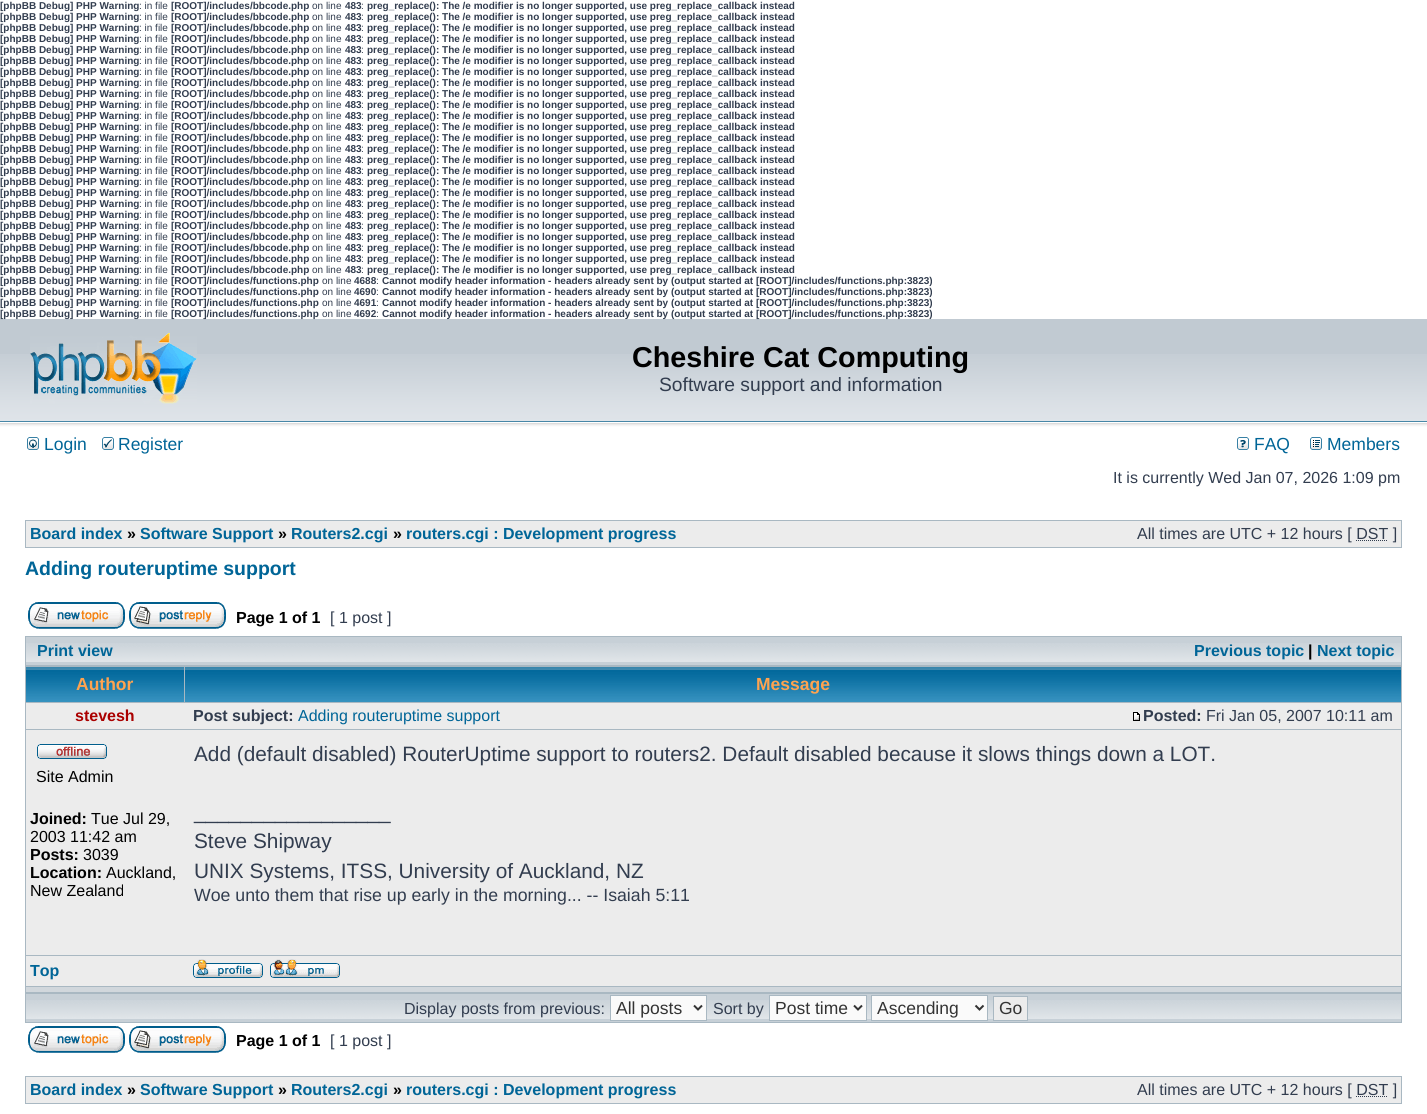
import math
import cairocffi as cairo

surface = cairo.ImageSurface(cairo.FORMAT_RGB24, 1427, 1114)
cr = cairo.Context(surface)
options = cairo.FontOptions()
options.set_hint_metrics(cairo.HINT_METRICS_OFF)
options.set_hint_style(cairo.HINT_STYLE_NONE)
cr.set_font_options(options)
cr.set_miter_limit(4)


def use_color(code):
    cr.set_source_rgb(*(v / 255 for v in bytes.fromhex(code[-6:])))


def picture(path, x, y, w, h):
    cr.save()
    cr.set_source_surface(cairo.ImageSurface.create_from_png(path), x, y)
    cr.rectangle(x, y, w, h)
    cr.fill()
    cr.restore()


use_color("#ffffff")
cr.paint()
cr.select_font_face("Liberation Sans", cairo.FONT_SLANT_NORMAL, cairo.FONT_WEIGHT_BOLD)
cr.set_font_size(10)
use_color("#323d4f")
cr.move_to(0, 9)
cr.show_text("[phpBB Debug] PHP Warning")
cr.select_font_face("Liberation Sans")
cr.move_to(139, 9)
cr.show_text(": in file")
cr.select_font_face("Liberation Sans", cairo.FONT_SLANT_NORMAL, cairo.FONT_WEIGHT_BOLD)
cr.move_to(171, 9)
cr.show_text("[ROOT]/includes/bbcode.php")
cr.select_font_face("Liberation Sans")
cr.move_to(312, 9)
cr.show_text("on line")
cr.select_font_face("Liberation Sans", cairo.FONT_SLANT_NORMAL, cairo.FONT_WEIGHT_BOLD)
cr.move_to(345, 9)
cr.show_text("483")
cr.select_font_face("Liberation Sans")
cr.move_to(361, 9)
cr.show_text(":")
cr.select_font_face("Liberation Sans", cairo.FONT_SLANT_NORMAL, cairo.FONT_WEIGHT_BOLD)
cr.move_to(367, 9)
cr.show_text("preg_replace(): The /e modifier is no longer supported, use preg_replace_callback instead")
cr.move_to(0, 20)
cr.show_text("[phpBB Debug] PHP Warning")
cr.select_font_face("Liberation Sans")
cr.move_to(139, 20)
cr.show_text(": in file")
cr.select_font_face("Liberation Sans", cairo.FONT_SLANT_NORMAL, cairo.FONT_WEIGHT_BOLD)
cr.move_to(171, 20)
cr.show_text("[ROOT]/includes/bbcode.php")
cr.select_font_face("Liberation Sans")
cr.move_to(312, 20)
cr.show_text("on line")
cr.select_font_face("Liberation Sans", cairo.FONT_SLANT_NORMAL, cairo.FONT_WEIGHT_BOLD)
cr.move_to(345, 20)
cr.show_text("483")
cr.select_font_face("Liberation Sans")
cr.move_to(361, 20)
cr.show_text(":")
cr.select_font_face("Liberation Sans", cairo.FONT_SLANT_NORMAL, cairo.FONT_WEIGHT_BOLD)
cr.move_to(367, 20)
cr.show_text("preg_replace(): The /e modifier is no longer supported, use preg_replace_callback instead")
cr.move_to(0, 31)
cr.show_text("[phpBB Debug] PHP Warning")
cr.select_font_face("Liberation Sans")
cr.move_to(139, 31)
cr.show_text(": in file")
cr.select_font_face("Liberation Sans", cairo.FONT_SLANT_NORMAL, cairo.FONT_WEIGHT_BOLD)
cr.move_to(171, 31)
cr.show_text("[ROOT]/includes/bbcode.php")
cr.select_font_face("Liberation Sans")
cr.move_to(312, 31)
cr.show_text("on line")
cr.select_font_face("Liberation Sans", cairo.FONT_SLANT_NORMAL, cairo.FONT_WEIGHT_BOLD)
cr.move_to(345, 31)
cr.show_text("483")
cr.select_font_face("Liberation Sans")
cr.move_to(361, 31)
cr.show_text(":")
cr.select_font_face("Liberation Sans", cairo.FONT_SLANT_NORMAL, cairo.FONT_WEIGHT_BOLD)
cr.move_to(367, 31)
cr.show_text("preg_replace(): The /e modifier is no longer supported, use preg_replace_callback instead")
cr.move_to(0, 42)
cr.show_text("[phpBB Debug] PHP Warning")
cr.select_font_face("Liberation Sans")
cr.move_to(139, 42)
cr.show_text(": in file")
cr.select_font_face("Liberation Sans", cairo.FONT_SLANT_NORMAL, cairo.FONT_WEIGHT_BOLD)
cr.move_to(171, 42)
cr.show_text("[ROOT]/includes/bbcode.php")
cr.select_font_face("Liberation Sans")
cr.move_to(312, 42)
cr.show_text("on line")
cr.select_font_face("Liberation Sans", cairo.FONT_SLANT_NORMAL, cairo.FONT_WEIGHT_BOLD)
cr.move_to(345, 42)
cr.show_text("483")
cr.select_font_face("Liberation Sans")
cr.move_to(361, 42)
cr.show_text(":")
cr.select_font_face("Liberation Sans", cairo.FONT_SLANT_NORMAL, cairo.FONT_WEIGHT_BOLD)
cr.move_to(367, 42)
cr.show_text("preg_replace(): The /e modifier is no longer supported, use preg_replace_callback instead")
cr.move_to(0, 53)
cr.show_text("[phpBB Debug] PHP Warning")
cr.select_font_face("Liberation Sans")
cr.move_to(139, 53)
cr.show_text(": in file")
cr.select_font_face("Liberation Sans", cairo.FONT_SLANT_NORMAL, cairo.FONT_WEIGHT_BOLD)
cr.move_to(171, 53)
cr.show_text("[ROOT]/includes/bbcode.php")
cr.select_font_face("Liberation Sans")
cr.move_to(312, 53)
cr.show_text("on line")
cr.select_font_face("Liberation Sans", cairo.FONT_SLANT_NORMAL, cairo.FONT_WEIGHT_BOLD)
cr.move_to(345, 53)
cr.show_text("483")
cr.select_font_face("Liberation Sans")
cr.move_to(361, 53)
cr.show_text(":")
cr.select_font_face("Liberation Sans", cairo.FONT_SLANT_NORMAL, cairo.FONT_WEIGHT_BOLD)
cr.move_to(367, 53)
cr.show_text("preg_replace(): The /e modifier is no longer supported, use preg_replace_callback instead")
cr.move_to(0, 64)
cr.show_text("[phpBB Debug] PHP Warning")
cr.select_font_face("Liberation Sans")
cr.move_to(139, 64)
cr.show_text(": in file")
cr.select_font_face("Liberation Sans", cairo.FONT_SLANT_NORMAL, cairo.FONT_WEIGHT_BOLD)
cr.move_to(171, 64)
cr.show_text("[ROOT]/includes/bbcode.php")
cr.select_font_face("Liberation Sans")
cr.move_to(312, 64)
cr.show_text("on line")
cr.select_font_face("Liberation Sans", cairo.FONT_SLANT_NORMAL, cairo.FONT_WEIGHT_BOLD)
cr.move_to(345, 64)
cr.show_text("483")
cr.select_font_face("Liberation Sans")
cr.move_to(361, 64)
cr.show_text(":")
cr.select_font_face("Liberation Sans", cairo.FONT_SLANT_NORMAL, cairo.FONT_WEIGHT_BOLD)
cr.move_to(367, 64)
cr.show_text("preg_replace(): The /e modifier is no longer supported, use preg_replace_callback instead")
cr.move_to(0, 75)
cr.show_text("[phpBB Debug] PHP Warning")
cr.select_font_face("Liberation Sans")
cr.move_to(139, 75)
cr.show_text(": in file")
cr.select_font_face("Liberation Sans", cairo.FONT_SLANT_NORMAL, cairo.FONT_WEIGHT_BOLD)
cr.move_to(171, 75)
cr.show_text("[ROOT]/includes/bbcode.php")
cr.select_font_face("Liberation Sans")
cr.move_to(312, 75)
cr.show_text("on line")
cr.select_font_face("Liberation Sans", cairo.FONT_SLANT_NORMAL, cairo.FONT_WEIGHT_BOLD)
cr.move_to(345, 75)
cr.show_text("483")
cr.select_font_face("Liberation Sans")
cr.move_to(361, 75)
cr.show_text(":")
cr.select_font_face("Liberation Sans", cairo.FONT_SLANT_NORMAL, cairo.FONT_WEIGHT_BOLD)
cr.move_to(367, 75)
cr.show_text("preg_replace(): The /e modifier is no longer supported, use preg_replace_callback instead")
cr.move_to(0, 86)
cr.show_text("[phpBB Debug] PHP Warning")
cr.select_font_face("Liberation Sans")
cr.move_to(139, 86)
cr.show_text(": in file")
cr.select_font_face("Liberation Sans", cairo.FONT_SLANT_NORMAL, cairo.FONT_WEIGHT_BOLD)
cr.move_to(171, 86)
cr.show_text("[ROOT]/includes/bbcode.php")
cr.select_font_face("Liberation Sans")
cr.move_to(312, 86)
cr.show_text("on line")
cr.select_font_face("Liberation Sans", cairo.FONT_SLANT_NORMAL, cairo.FONT_WEIGHT_BOLD)
cr.move_to(345, 86)
cr.show_text("483")
cr.select_font_face("Liberation Sans")
cr.move_to(361, 86)
cr.show_text(":")
cr.select_font_face("Liberation Sans", cairo.FONT_SLANT_NORMAL, cairo.FONT_WEIGHT_BOLD)
cr.move_to(367, 86)
cr.show_text("preg_replace(): The /e modifier is no longer supported, use preg_replace_callback instead")
cr.move_to(0, 97)
cr.show_text("[phpBB Debug] PHP Warning")
cr.select_font_face("Liberation Sans")
cr.move_to(139, 97)
cr.show_text(": in file")
cr.select_font_face("Liberation Sans", cairo.FONT_SLANT_NORMAL, cairo.FONT_WEIGHT_BOLD)
cr.move_to(171, 97)
cr.show_text("[ROOT]/includes/bbcode.php")
cr.select_font_face("Liberation Sans")
cr.move_to(312, 97)
cr.show_text("on line")
cr.select_font_face("Liberation Sans", cairo.FONT_SLANT_NORMAL, cairo.FONT_WEIGHT_BOLD)
cr.move_to(345, 97)
cr.show_text("483")
cr.select_font_face("Liberation Sans")
cr.move_to(361, 97)
cr.show_text(":")
cr.select_font_face("Liberation Sans", cairo.FONT_SLANT_NORMAL, cairo.FONT_WEIGHT_BOLD)
cr.move_to(367, 97)
cr.show_text("preg_replace(): The /e modifier is no longer supported, use preg_replace_callback instead")
cr.move_to(0, 108)
cr.show_text("[phpBB Debug] PHP Warning")
cr.select_font_face("Liberation Sans")
cr.move_to(139, 108)
cr.show_text(": in file")
cr.select_font_face("Liberation Sans", cairo.FONT_SLANT_NORMAL, cairo.FONT_WEIGHT_BOLD)
cr.move_to(171, 108)
cr.show_text("[ROOT]/includes/bbcode.php")
cr.select_font_face("Liberation Sans")
cr.move_to(312, 108)
cr.show_text("on line")
cr.select_font_face("Liberation Sans", cairo.FONT_SLANT_NORMAL, cairo.FONT_WEIGHT_BOLD)
cr.move_to(345, 108)
cr.show_text("483")
cr.select_font_face("Liberation Sans")
cr.move_to(361, 108)
cr.show_text(":")
cr.select_font_face("Liberation Sans", cairo.FONT_SLANT_NORMAL, cairo.FONT_WEIGHT_BOLD)
cr.move_to(367, 108)
cr.show_text("preg_replace(): The /e modifier is no longer supported, use preg_replace_callback instead")
cr.move_to(0, 119)
cr.show_text("[phpBB Debug] PHP Warning")
cr.select_font_face("Liberation Sans")
cr.move_to(139, 119)
cr.show_text(": in file")
cr.select_font_face("Liberation Sans", cairo.FONT_SLANT_NORMAL, cairo.FONT_WEIGHT_BOLD)
cr.move_to(171, 119)
cr.show_text("[ROOT]/includes/bbcode.php")
cr.select_font_face("Liberation Sans")
cr.move_to(312, 119)
cr.show_text("on line")
cr.select_font_face("Liberation Sans", cairo.FONT_SLANT_NORMAL, cairo.FONT_WEIGHT_BOLD)
cr.move_to(345, 119)
cr.show_text("483")
cr.select_font_face("Liberation Sans")
cr.move_to(361, 119)
cr.show_text(":")
cr.select_font_face("Liberation Sans", cairo.FONT_SLANT_NORMAL, cairo.FONT_WEIGHT_BOLD)
cr.move_to(367, 119)
cr.show_text("preg_replace(): The /e modifier is no longer supported, use preg_replace_callback instead")
cr.move_to(0, 130)
cr.show_text("[phpBB Debug] PHP Warning")
cr.select_font_face("Liberation Sans")
cr.move_to(139, 130)
cr.show_text(": in file")
cr.select_font_face("Liberation Sans", cairo.FONT_SLANT_NORMAL, cairo.FONT_WEIGHT_BOLD)
cr.move_to(171, 130)
cr.show_text("[ROOT]/includes/bbcode.php")
cr.select_font_face("Liberation Sans")
cr.move_to(312, 130)
cr.show_text("on line")
cr.select_font_face("Liberation Sans", cairo.FONT_SLANT_NORMAL, cairo.FONT_WEIGHT_BOLD)
cr.move_to(345, 130)
cr.show_text("483")
cr.select_font_face("Liberation Sans")
cr.move_to(361, 130)
cr.show_text(":")
cr.select_font_face("Liberation Sans", cairo.FONT_SLANT_NORMAL, cairo.FONT_WEIGHT_BOLD)
cr.move_to(367, 130)
cr.show_text("preg_replace(): The /e modifier is no longer supported, use preg_replace_callback instead")
cr.move_to(0, 141)
cr.show_text("[phpBB Debug] PHP Warning")
cr.select_font_face("Liberation Sans")
cr.move_to(139, 141)
cr.show_text(": in file")
cr.select_font_face("Liberation Sans", cairo.FONT_SLANT_NORMAL, cairo.FONT_WEIGHT_BOLD)
cr.move_to(171, 141)
cr.show_text("[ROOT]/includes/bbcode.php")
cr.select_font_face("Liberation Sans")
cr.move_to(312, 141)
cr.show_text("on line")
cr.select_font_face("Liberation Sans", cairo.FONT_SLANT_NORMAL, cairo.FONT_WEIGHT_BOLD)
cr.move_to(345, 141)
cr.show_text("483")
cr.select_font_face("Liberation Sans")
cr.move_to(361, 141)
cr.show_text(":")
cr.select_font_face("Liberation Sans", cairo.FONT_SLANT_NORMAL, cairo.FONT_WEIGHT_BOLD)
cr.move_to(367, 141)
cr.show_text("preg_replace(): The /e modifier is no longer supported, use preg_replace_callback instead")
cr.move_to(0, 152)
cr.show_text("[phpBB Debug] PHP Warning")
cr.select_font_face("Liberation Sans")
cr.move_to(139, 152)
cr.show_text(": in file")
cr.select_font_face("Liberation Sans", cairo.FONT_SLANT_NORMAL, cairo.FONT_WEIGHT_BOLD)
cr.move_to(171, 152)
cr.show_text("[ROOT]/includes/bbcode.php")
cr.select_font_face("Liberation Sans")
cr.move_to(312, 152)
cr.show_text("on line")
cr.select_font_face("Liberation Sans", cairo.FONT_SLANT_NORMAL, cairo.FONT_WEIGHT_BOLD)
cr.move_to(345, 152)
cr.show_text("483")
cr.select_font_face("Liberation Sans")
cr.move_to(361, 152)
cr.show_text(":")
cr.select_font_face("Liberation Sans", cairo.FONT_SLANT_NORMAL, cairo.FONT_WEIGHT_BOLD)
cr.move_to(367, 152)
cr.show_text("preg_replace(): The /e modifier is no longer supported, use preg_replace_callback instead")
cr.move_to(0, 163)
cr.show_text("[phpBB Debug] PHP Warning")
cr.select_font_face("Liberation Sans")
cr.move_to(139, 163)
cr.show_text(": in file")
cr.select_font_face("Liberation Sans", cairo.FONT_SLANT_NORMAL, cairo.FONT_WEIGHT_BOLD)
cr.move_to(171, 163)
cr.show_text("[ROOT]/includes/bbcode.php")
cr.select_font_face("Liberation Sans")
cr.move_to(312, 163)
cr.show_text("on line")
cr.select_font_face("Liberation Sans", cairo.FONT_SLANT_NORMAL, cairo.FONT_WEIGHT_BOLD)
cr.move_to(345, 163)
cr.show_text("483")
cr.select_font_face("Liberation Sans")
cr.move_to(361, 163)
cr.show_text(":")
cr.select_font_face("Liberation Sans", cairo.FONT_SLANT_NORMAL, cairo.FONT_WEIGHT_BOLD)
cr.move_to(367, 163)
cr.show_text("preg_replace(): The /e modifier is no longer supported, use preg_replace_callback instead")
cr.move_to(0, 174)
cr.show_text("[phpBB Debug] PHP Warning")
cr.select_font_face("Liberation Sans")
cr.move_to(139, 174)
cr.show_text(": in file")
cr.select_font_face("Liberation Sans", cairo.FONT_SLANT_NORMAL, cairo.FONT_WEIGHT_BOLD)
cr.move_to(171, 174)
cr.show_text("[ROOT]/includes/bbcode.php")
cr.select_font_face("Liberation Sans")
cr.move_to(312, 174)
cr.show_text("on line")
cr.select_font_face("Liberation Sans", cairo.FONT_SLANT_NORMAL, cairo.FONT_WEIGHT_BOLD)
cr.move_to(345, 174)
cr.show_text("483")
cr.select_font_face("Liberation Sans")
cr.move_to(361, 174)
cr.show_text(":")
cr.select_font_face("Liberation Sans", cairo.FONT_SLANT_NORMAL, cairo.FONT_WEIGHT_BOLD)
cr.move_to(367, 174)
cr.show_text("preg_replace(): The /e modifier is no longer supported, use preg_replace_callback instead")
cr.move_to(0, 185)
cr.show_text("[phpBB Debug] PHP Warning")
cr.select_font_face("Liberation Sans")
cr.move_to(139, 185)
cr.show_text(": in file")
cr.select_font_face("Liberation Sans", cairo.FONT_SLANT_NORMAL, cairo.FONT_WEIGHT_BOLD)
cr.move_to(171, 185)
cr.show_text("[ROOT]/includes/bbcode.php")
cr.select_font_face("Liberation Sans")
cr.move_to(312, 185)
cr.show_text("on line")
cr.select_font_face("Liberation Sans", cairo.FONT_SLANT_NORMAL, cairo.FONT_WEIGHT_BOLD)
cr.move_to(345, 185)
cr.show_text("483")
cr.select_font_face("Liberation Sans")
cr.move_to(361, 185)
cr.show_text(":")
cr.select_font_face("Liberation Sans", cairo.FONT_SLANT_NORMAL, cairo.FONT_WEIGHT_BOLD)
cr.move_to(367, 185)
cr.show_text("preg_replace(): The /e modifier is no longer supported, use preg_replace_callback instead")
cr.move_to(0, 196)
cr.show_text("[phpBB Debug] PHP Warning")
cr.select_font_face("Liberation Sans")
cr.move_to(139, 196)
cr.show_text(": in file")
cr.select_font_face("Liberation Sans", cairo.FONT_SLANT_NORMAL, cairo.FONT_WEIGHT_BOLD)
cr.move_to(171, 196)
cr.show_text("[ROOT]/includes/bbcode.php")
cr.select_font_face("Liberation Sans")
cr.move_to(312, 196)
cr.show_text("on line")
cr.select_font_face("Liberation Sans", cairo.FONT_SLANT_NORMAL, cairo.FONT_WEIGHT_BOLD)
cr.move_to(345, 196)
cr.show_text("483")
cr.select_font_face("Liberation Sans")
cr.move_to(361, 196)
cr.show_text(":")
cr.select_font_face("Liberation Sans", cairo.FONT_SLANT_NORMAL, cairo.FONT_WEIGHT_BOLD)
cr.move_to(367, 196)
cr.show_text("preg_replace(): The /e modifier is no longer supported, use preg_replace_callback instead")
cr.move_to(0, 207)
cr.show_text("[phpBB Debug] PHP Warning")
cr.select_font_face("Liberation Sans")
cr.move_to(139, 207)
cr.show_text(": in file")
cr.select_font_face("Liberation Sans", cairo.FONT_SLANT_NORMAL, cairo.FONT_WEIGHT_BOLD)
cr.move_to(171, 207)
cr.show_text("[ROOT]/includes/bbcode.php")
cr.select_font_face("Liberation Sans")
cr.move_to(312, 207)
cr.show_text("on line")
cr.select_font_face("Liberation Sans", cairo.FONT_SLANT_NORMAL, cairo.FONT_WEIGHT_BOLD)
cr.move_to(345, 207)
cr.show_text("483")
cr.select_font_face("Liberation Sans")
cr.move_to(361, 207)
cr.show_text(":")
cr.select_font_face("Liberation Sans", cairo.FONT_SLANT_NORMAL, cairo.FONT_WEIGHT_BOLD)
cr.move_to(367, 207)
cr.show_text("preg_replace(): The /e modifier is no longer supported, use preg_replace_callback instead")
cr.move_to(0, 218)
cr.show_text("[phpBB Debug] PHP Warning")
cr.select_font_face("Liberation Sans")
cr.move_to(139, 218)
cr.show_text(": in file")
cr.select_font_face("Liberation Sans", cairo.FONT_SLANT_NORMAL, cairo.FONT_WEIGHT_BOLD)
cr.move_to(171, 218)
cr.show_text("[ROOT]/includes/bbcode.php")
cr.select_font_face("Liberation Sans")
cr.move_to(312, 218)
cr.show_text("on line")
cr.select_font_face("Liberation Sans", cairo.FONT_SLANT_NORMAL, cairo.FONT_WEIGHT_BOLD)
cr.move_to(345, 218)
cr.show_text("483")
cr.select_font_face("Liberation Sans")
cr.move_to(361, 218)
cr.show_text(":")
cr.select_font_face("Liberation Sans", cairo.FONT_SLANT_NORMAL, cairo.FONT_WEIGHT_BOLD)
cr.move_to(367, 218)
cr.show_text("preg_replace(): The /e modifier is no longer supported, use preg_replace_callback instead")
cr.move_to(0, 229)
cr.show_text("[phpBB Debug] PHP Warning")
cr.select_font_face("Liberation Sans")
cr.move_to(139, 229)
cr.show_text(": in file")
cr.select_font_face("Liberation Sans", cairo.FONT_SLANT_NORMAL, cairo.FONT_WEIGHT_BOLD)
cr.move_to(171, 229)
cr.show_text("[ROOT]/includes/bbcode.php")
cr.select_font_face("Liberation Sans")
cr.move_to(312, 229)
cr.show_text("on line")
cr.select_font_face("Liberation Sans", cairo.FONT_SLANT_NORMAL, cairo.FONT_WEIGHT_BOLD)
cr.move_to(345, 229)
cr.show_text("483")
cr.select_font_face("Liberation Sans")
cr.move_to(361, 229)
cr.show_text(":")
cr.select_font_face("Liberation Sans", cairo.FONT_SLANT_NORMAL, cairo.FONT_WEIGHT_BOLD)
cr.move_to(367, 229)
cr.show_text("preg_replace(): The /e modifier is no longer supported, use preg_replace_callback instead")
cr.move_to(0, 240)
cr.show_text("[phpBB Debug] PHP Warning")
cr.select_font_face("Liberation Sans")
cr.move_to(139, 240)
cr.show_text(": in file")
cr.select_font_face("Liberation Sans", cairo.FONT_SLANT_NORMAL, cairo.FONT_WEIGHT_BOLD)
cr.move_to(171, 240)
cr.show_text("[ROOT]/includes/bbcode.php")
cr.select_font_face("Liberation Sans")
cr.move_to(312, 240)
cr.show_text("on line")
cr.select_font_face("Liberation Sans", cairo.FONT_SLANT_NORMAL, cairo.FONT_WEIGHT_BOLD)
cr.move_to(345, 240)
cr.show_text("483")
cr.select_font_face("Liberation Sans")
cr.move_to(361, 240)
cr.show_text(":")
cr.select_font_face("Liberation Sans", cairo.FONT_SLANT_NORMAL, cairo.FONT_WEIGHT_BOLD)
cr.move_to(367, 240)
cr.show_text("preg_replace(): The /e modifier is no longer supported, use preg_replace_callback instead")
cr.move_to(0, 251)
cr.show_text("[phpBB Debug] PHP Warning")
cr.select_font_face("Liberation Sans")
cr.move_to(139, 251)
cr.show_text(": in file")
cr.select_font_face("Liberation Sans", cairo.FONT_SLANT_NORMAL, cairo.FONT_WEIGHT_BOLD)
cr.move_to(171, 251)
cr.show_text("[ROOT]/includes/bbcode.php")
cr.select_font_face("Liberation Sans")
cr.move_to(312, 251)
cr.show_text("on line")
cr.select_font_face("Liberation Sans", cairo.FONT_SLANT_NORMAL, cairo.FONT_WEIGHT_BOLD)
cr.move_to(345, 251)
cr.show_text("483")
cr.select_font_face("Liberation Sans")
cr.move_to(361, 251)
cr.show_text(":")
cr.select_font_face("Liberation Sans", cairo.FONT_SLANT_NORMAL, cairo.FONT_WEIGHT_BOLD)
cr.move_to(367, 251)
cr.show_text("preg_replace(): The /e modifier is no longer supported, use preg_replace_callback instead")
cr.move_to(0, 262)
cr.show_text("[phpBB Debug] PHP Warning")
cr.select_font_face("Liberation Sans")
cr.move_to(139, 262)
cr.show_text(": in file")
cr.select_font_face("Liberation Sans", cairo.FONT_SLANT_NORMAL, cairo.FONT_WEIGHT_BOLD)
cr.move_to(171, 262)
cr.show_text("[ROOT]/includes/bbcode.php")
cr.select_font_face("Liberation Sans")
cr.move_to(312, 262)
cr.show_text("on line")
cr.select_font_face("Liberation Sans", cairo.FONT_SLANT_NORMAL, cairo.FONT_WEIGHT_BOLD)
cr.move_to(345, 262)
cr.show_text("483")
cr.select_font_face("Liberation Sans")
cr.move_to(361, 262)
cr.show_text(":")
cr.select_font_face("Liberation Sans", cairo.FONT_SLANT_NORMAL, cairo.FONT_WEIGHT_BOLD)
cr.move_to(367, 262)
cr.show_text("preg_replace(): The /e modifier is no longer supported, use preg_replace_callback instead")
cr.move_to(0, 273)
cr.show_text("[phpBB Debug] PHP Warning")
cr.select_font_face("Liberation Sans")
cr.move_to(139, 273)
cr.show_text(": in file")
cr.select_font_face("Liberation Sans", cairo.FONT_SLANT_NORMAL, cairo.FONT_WEIGHT_BOLD)
cr.move_to(171, 273)
cr.show_text("[ROOT]/includes/bbcode.php")
cr.select_font_face("Liberation Sans")
cr.move_to(312, 273)
cr.show_text("on line")
cr.select_font_face("Liberation Sans", cairo.FONT_SLANT_NORMAL, cairo.FONT_WEIGHT_BOLD)
cr.move_to(345, 273)
cr.show_text("483")
cr.select_font_face("Liberation Sans")
cr.move_to(361, 273)
cr.show_text(":")
cr.select_font_face("Liberation Sans", cairo.FONT_SLANT_NORMAL, cairo.FONT_WEIGHT_BOLD)
cr.move_to(367, 273)
cr.show_text("preg_replace(): The /e modifier is no longer supported, use preg_replace_callback instead")
cr.move_to(0, 284)
cr.show_text("[phpBB Debug] PHP Warning")
cr.select_font_face("Liberation Sans")
cr.move_to(139, 284)
cr.show_text(": in file")
cr.select_font_face("Liberation Sans", cairo.FONT_SLANT_NORMAL, cairo.FONT_WEIGHT_BOLD)
cr.move_to(171, 284)
cr.show_text("[ROOT]/includes/functions.php")
cr.select_font_face("Liberation Sans")
cr.move_to(322, 284)
cr.show_text("on line")
cr.select_font_face("Liberation Sans", cairo.FONT_SLANT_NORMAL, cairo.FONT_WEIGHT_BOLD)
cr.move_to(354, 284)
cr.show_text("4688")
cr.select_font_face("Liberation Sans")
cr.move_to(376, 284)
cr.show_text(":")
cr.select_font_face("Liberation Sans", cairo.FONT_SLANT_NORMAL, cairo.FONT_WEIGHT_BOLD)
cr.move_to(382, 284)
cr.show_text("Cannot modify header information - headers already sent by (output started at [ROOT]/includes/functions.php:3823)")
cr.move_to(0, 295)
cr.show_text("[phpBB Debug] PHP Warning")
cr.select_font_face("Liberation Sans")
cr.move_to(139, 295)
cr.show_text(": in file")
cr.select_font_face("Liberation Sans", cairo.FONT_SLANT_NORMAL, cairo.FONT_WEIGHT_BOLD)
cr.move_to(171, 295)
cr.show_text("[ROOT]/includes/functions.php")
cr.select_font_face("Liberation Sans")
cr.move_to(322, 295)
cr.show_text("on line")
cr.select_font_face("Liberation Sans", cairo.FONT_SLANT_NORMAL, cairo.FONT_WEIGHT_BOLD)
cr.move_to(354, 295)
cr.show_text("4690")
cr.select_font_face("Liberation Sans")
cr.move_to(376, 295)
cr.show_text(":")
cr.select_font_face("Liberation Sans", cairo.FONT_SLANT_NORMAL, cairo.FONT_WEIGHT_BOLD)
cr.move_to(382, 295)
cr.show_text("Cannot modify header information - headers already sent by (output started at [ROOT]/includes/functions.php:3823)")
cr.move_to(0, 306)
cr.show_text("[phpBB Debug] PHP Warning")
cr.select_font_face("Liberation Sans")
cr.move_to(139, 306)
cr.show_text(": in file")
cr.select_font_face("Liberation Sans", cairo.FONT_SLANT_NORMAL, cairo.FONT_WEIGHT_BOLD)
cr.move_to(171, 306)
cr.show_text("[ROOT]/includes/functions.php")
cr.select_font_face("Liberation Sans")
cr.move_to(322, 306)
cr.show_text("on line")
cr.select_font_face("Liberation Sans", cairo.FONT_SLANT_NORMAL, cairo.FONT_WEIGHT_BOLD)
cr.move_to(354, 306)
cr.show_text("4691")
cr.select_font_face("Liberation Sans")
cr.move_to(376, 306)
cr.show_text(":")
cr.select_font_face("Liberation Sans", cairo.FONT_SLANT_NORMAL, cairo.FONT_WEIGHT_BOLD)
cr.move_to(382, 306)
cr.show_text("Cannot modify header information - headers already sent by (output started at [ROOT]/includes/functions.php:3823)")
use_color("#c1cad2")
cr.rectangle(0, 319, 1427, 35)
cr.fill()
use_color("#323d4f")
cr.move_to(0, 317)
cr.show_text("[phpBB Debug] PHP Warning")
cr.select_font_face("Liberation Sans")
cr.move_to(139, 317)
cr.show_text(": in file")
cr.select_font_face("Liberation Sans", cairo.FONT_SLANT_NORMAL, cairo.FONT_WEIGHT_BOLD)
cr.move_to(171, 317)
cr.show_text("[ROOT]/includes/functions.php")
cr.select_font_face("Liberation Sans")
cr.move_to(322, 317)
cr.show_text("on line")
cr.select_font_face("Liberation Sans", cairo.FONT_SLANT_NORMAL, cairo.FONT_WEIGHT_BOLD)
cr.move_to(354, 317)
cr.show_text("4692")
cr.select_font_face("Liberation Sans")
cr.move_to(376, 317)
cr.show_text(":")
cr.select_font_face("Liberation Sans", cairo.FONT_SLANT_NORMAL, cairo.FONT_WEIGHT_BOLD)
cr.move_to(382, 317)
cr.show_text("Cannot modify header information - headers already sent by (output started at [ROOT]/includes/functions.php:3823)")
picture("img1.png", 0, 354, 1427, 78)
picture("img2.png", 30, 333, 167, 71)
cr.set_font_size(28.75)
use_color("#000000")
cr.move_to(632, 367)
cr.show_text("Cheshire Cat Computing")
cr.select_font_face("Liberation Sans")
cr.set_font_size(19.25)
use_color("#323d4f")
cr.move_to(659, 391)
cr.show_text("Software support and information")
picture("img3.png", 27, 437, 12, 13)
cr.set_font_size(17.5)
use_color("#006597")
cr.move_to(44, 450)
cr.show_text("Login")
picture("img4.png", 102, 437, 12, 13)
cr.move_to(118, 450)
cr.show_text("Register")
picture("img5.png", 1237, 437, 12, 13)
cr.move_to(1254, 450)
cr.show_text("FAQ")
picture("img6.png", 1310, 437, 12, 13)
cr.move_to(1327, 450)
cr.show_text("Members")
cr.set_font_size(16)
use_color("#323d4f")
cr.move_to(1113, 483)
cr.show_text("It is currently Wed Jan 07, 2026 1:09 pm")
use_color("#a9b8c2")
cr.rectangle(25, 520, 1377, 28)
cr.fill()
use_color("#ececec")
cr.rectangle(26, 521, 1375, 26)
cr.fill()
cr.select_font_face("Liberation Sans", cairo.FONT_SLANT_NORMAL, cairo.FONT_WEIGHT_BOLD)
use_color("#006597")
cr.move_to(30, 539)
cr.show_text("Board index")
use_color("#000000")
cr.move_to(127, 539)
cr.show_text("»")
use_color("#006597")
cr.move_to(140, 539)
cr.show_text("Software Support")
use_color("#000000")
cr.move_to(278, 539)
cr.show_text("»")
use_color("#006597")
cr.move_to(291, 539)
cr.show_text("Routers2.cgi")
use_color("#000000")
cr.move_to(393, 539)
cr.show_text("»")
use_color("#006597")
cr.move_to(406, 539)
cr.show_text("routers.cgi : Development progress")
cr.select_font_face("Liberation Sans")
use_color("#323d4f")
cr.move_to(1137, 539)
cr.show_text("All times are UTC + 12 hours [ DST ]")
cr.new_path()
cr.move_to(1356, 540.5)
cr.line_to(1388, 540.5)
cr.set_line_width(1)
cr.set_dash([1, 1])
cr.stroke()
cr.select_font_face("Liberation Sans", cairo.FONT_SLANT_NORMAL, cairo.FONT_WEIGHT_BOLD)
cr.set_font_size(19.5)
use_color("#006597")
cr.move_to(25, 575)
cr.show_text("Adding routeruptime support")
picture("img7.png", 28, 602, 97, 27)
picture("img8.png", 129, 602, 97, 27)
cr.set_font_size(16)
use_color("#000000")
cr.move_to(236, 623)
cr.show_text("Page 1 of 1")
cr.select_font_face("Liberation Sans")
use_color("#323d4f")
cr.move_to(330, 623)
cr.show_text("[ 1 post ]")
use_color("#a9b8c2")
cr.rectangle(25, 636, 1377, 387)
cr.fill()
use_color("#c7d0d7")
cr.rectangle(26, 637, 1375, 28)
cr.fill()
picture("img9.png", 26, 643, 1375, 19)
cr.select_font_face("Liberation Sans", cairo.FONT_SLANT_NORMAL, cairo.FONT_WEIGHT_BOLD)
use_color("#006597")
cr.move_to(37, 656)
cr.show_text("Print view")
cr.move_to(1194, 656)
cr.show_text("Previous topic")
use_color("#000000")
cr.move_to(1308, 656)
cr.show_text("|")
use_color("#006597")
cr.move_to(1317, 656)
cr.show_text("Next topic")
picture("img10.png", 26, 667, 158, 35)
cr.set_font_size(17.5)
use_color("#ffa34f")
cr.move_to(76, 690)
cr.show_text("Author")
picture("img11.png", 185, 667, 1216, 35)
cr.move_to(756, 690)
cr.show_text("Message")
use_color("#ececec")
cr.rectangle(26, 703, 1375, 26)
cr.fill()
cr.set_font_size(16)
use_color("#aa0000")
cr.move_to(75, 721)
cr.show_text("stevesh")
use_color("#323d4f")
cr.move_to(193, 721)
cr.show_text("Post subject:")
cr.select_font_face("Liberation Sans")
use_color("#006597")
cr.move_to(298, 721)
cr.show_text("Adding routeruptime support")
picture("img12.png", 1133, 712, 7, 9)
cr.select_font_face("Liberation Sans", cairo.FONT_SLANT_NORMAL, cairo.FONT_WEIGHT_BOLD)
use_color("#323d4f")
cr.move_to(1143, 721)
cr.show_text("Posted:")
cr.select_font_face("Liberation Sans")
cr.move_to(1206, 721)
cr.show_text("Fri Jan 05, 2007 10:11 am")
use_color("#ececec")
cr.rectangle(26, 730, 1375, 225)
cr.fill()
picture("img13.png", 37, 744, 70, 15)
use_color("#000000")
cr.move_to(36, 782)
cr.show_text("Site Admin")
cr.select_font_face("Liberation Sans", cairo.FONT_SLANT_NORMAL, cairo.FONT_WEIGHT_BOLD)
cr.move_to(30, 824)
cr.show_text("Joined:")
cr.select_font_face("Liberation Sans")
cr.move_to(91, 824)
cr.show_text("Tue Jul 29,")
cr.move_to(30, 842)
cr.show_text("2003 11:42 am")
cr.select_font_face("Liberation Sans", cairo.FONT_SLANT_NORMAL, cairo.FONT_WEIGHT_BOLD)
cr.move_to(30, 860)
cr.show_text("Posts:")
cr.select_font_face("Liberation Sans")
cr.move_to(83, 860)
cr.show_text("3039")
cr.select_font_face("Liberation Sans", cairo.FONT_SLANT_NORMAL, cairo.FONT_WEIGHT_BOLD)
cr.move_to(30, 878)
cr.show_text("Location:")
cr.select_font_face("Liberation Sans")
cr.move_to(106, 878)
cr.show_text("Auckland,")
cr.move_to(30, 896)
cr.show_text("New Zealand")
cr.set_font_size(20.8)
use_color("#323d4f")
cr.move_to(194, 761)
cr.show_text("Add (default disabled) RouterUptime support to routers2. Default disabled because it slows things down a LOT.")
cr.move_to(194, 819)
cr.show_text("_________________")
cr.move_to(194, 848)
cr.show_text("Steve Shipway")
cr.move_to(194, 878)
cr.show_text("UNIX Systems, ITSS, University of Auckland, NZ")
cr.set_font_size(17.7)
cr.move_to(194, 901)
cr.show_text("Woe unto them that rise up early in the morning... -- Isaiah 5:11")
use_color("#ececec")
cr.rectangle(26, 956, 1375, 30)
cr.fill()
cr.select_font_face("Liberation Sans", cairo.FONT_SLANT_NORMAL, cairo.FONT_WEIGHT_BOLD)
cr.set_font_size(16)
use_color("#006597")
cr.move_to(30, 976)
cr.show_text("Top")
picture("img14.png", 193, 959, 70, 19)
picture("img15.png", 270, 959, 70, 19)
use_color("#d1d7dc")
cr.rectangle(26, 987, 1375, 5)
cr.fill()
use_color("#c7d0d7")
cr.rectangle(26, 994, 1375, 28)
cr.fill()
picture("img9.png", 26, 1000, 1375, 19)
cr.select_font_face("Liberation Sans")
use_color("#323d4f")
cr.move_to(404, 1014)
cr.show_text("Display posts from previous:")
use_color("#fafafa")
cr.rectangle(610.5, 995.5, 96, 25)
cr.fill_preserve()
use_color("#a9b8c2")
cr.set_dash([])
cr.stroke()
cr.new_path()
cr.move_to(694, 1005.5)
cr.line_to(698, 1009.5)
cr.line_to(702, 1005.5)
use_color("#333333")
cr.set_line_width(2)
cr.stroke()
cr.set_font_size(17.5)
cr.move_to(616, 1014)
cr.show_text("All posts")
cr.set_font_size(16)
use_color("#323d4f")
cr.move_to(713, 1014)
cr.show_text("Sort by")
use_color("#fafafa")
cr.rectangle(769.5, 995.5, 97, 25)
cr.fill_preserve()
use_color("#a9b8c2")
cr.set_line_width(1)
cr.stroke()
cr.new_path()
cr.move_to(854, 1005.5)
cr.line_to(858, 1009.5)
cr.line_to(862, 1005.5)
use_color("#333333")
cr.set_line_width(2)
cr.stroke()
cr.set_font_size(17.5)
cr.move_to(775, 1014)
cr.show_text("Post time")
use_color("#fafafa")
cr.rectangle(871.5, 995.5, 116, 25)
cr.fill_preserve()
use_color("#a9b8c2")
cr.set_line_width(1)
cr.stroke()
cr.new_path()
cr.move_to(975.5, 1005.5)
cr.line_to(979.5, 1009.5)
cr.line_to(983.5, 1005.5)
use_color("#333333")
cr.set_line_width(2)
cr.stroke()
cr.move_to(877, 1014)
cr.show_text("Ascending")
use_color("#ececec")
cr.rectangle(993.5, 996.5, 34, 24)
cr.fill_preserve()
use_color("#a9b8c2")
cr.set_line_width(1)
cr.stroke()
use_color("#333333")
cr.move_to(999, 1014)
cr.show_text("Go")
picture("img7.png", 28, 1026, 97, 27)
picture("img8.png", 129, 1026, 97, 27)
cr.select_font_face("Liberation Sans", cairo.FONT_SLANT_NORMAL, cairo.FONT_WEIGHT_BOLD)
cr.set_font_size(16)
use_color("#000000")
cr.move_to(236, 1046)
cr.show_text("Page 1 of 1")
cr.select_font_face("Liberation Sans")
use_color("#323d4f")
cr.move_to(330, 1046)
cr.show_text("[ 1 post ]")
use_color("#a9b8c2")
cr.rectangle(25, 1076, 1377, 28)
cr.fill()
use_color("#ececec")
cr.rectangle(26, 1077, 1375, 26)
cr.fill()
cr.select_font_face("Liberation Sans", cairo.FONT_SLANT_NORMAL, cairo.FONT_WEIGHT_BOLD)
use_color("#006597")
cr.move_to(30, 1095)
cr.show_text("Board index")
use_color("#000000")
cr.move_to(127, 1095)
cr.show_text("»")
use_color("#006597")
cr.move_to(140, 1095)
cr.show_text("Software Support")
use_color("#000000")
cr.move_to(278, 1095)
cr.show_text("»")
use_color("#006597")
cr.move_to(291, 1095)
cr.show_text("Routers2.cgi")
use_color("#000000")
cr.move_to(393, 1095)
cr.show_text("»")
use_color("#006597")
cr.move_to(406, 1095)
cr.show_text("routers.cgi : Development progress")
cr.select_font_face("Liberation Sans")
use_color("#323d4f")
cr.move_to(1137, 1095)
cr.show_text("All times are UTC + 12 hours [ DST ]")
cr.new_path()
cr.move_to(1356, 1096.5)
cr.line_to(1388, 1096.5)
cr.set_dash([1, 1])
cr.stroke()
surface.write_to_png("result.png")
